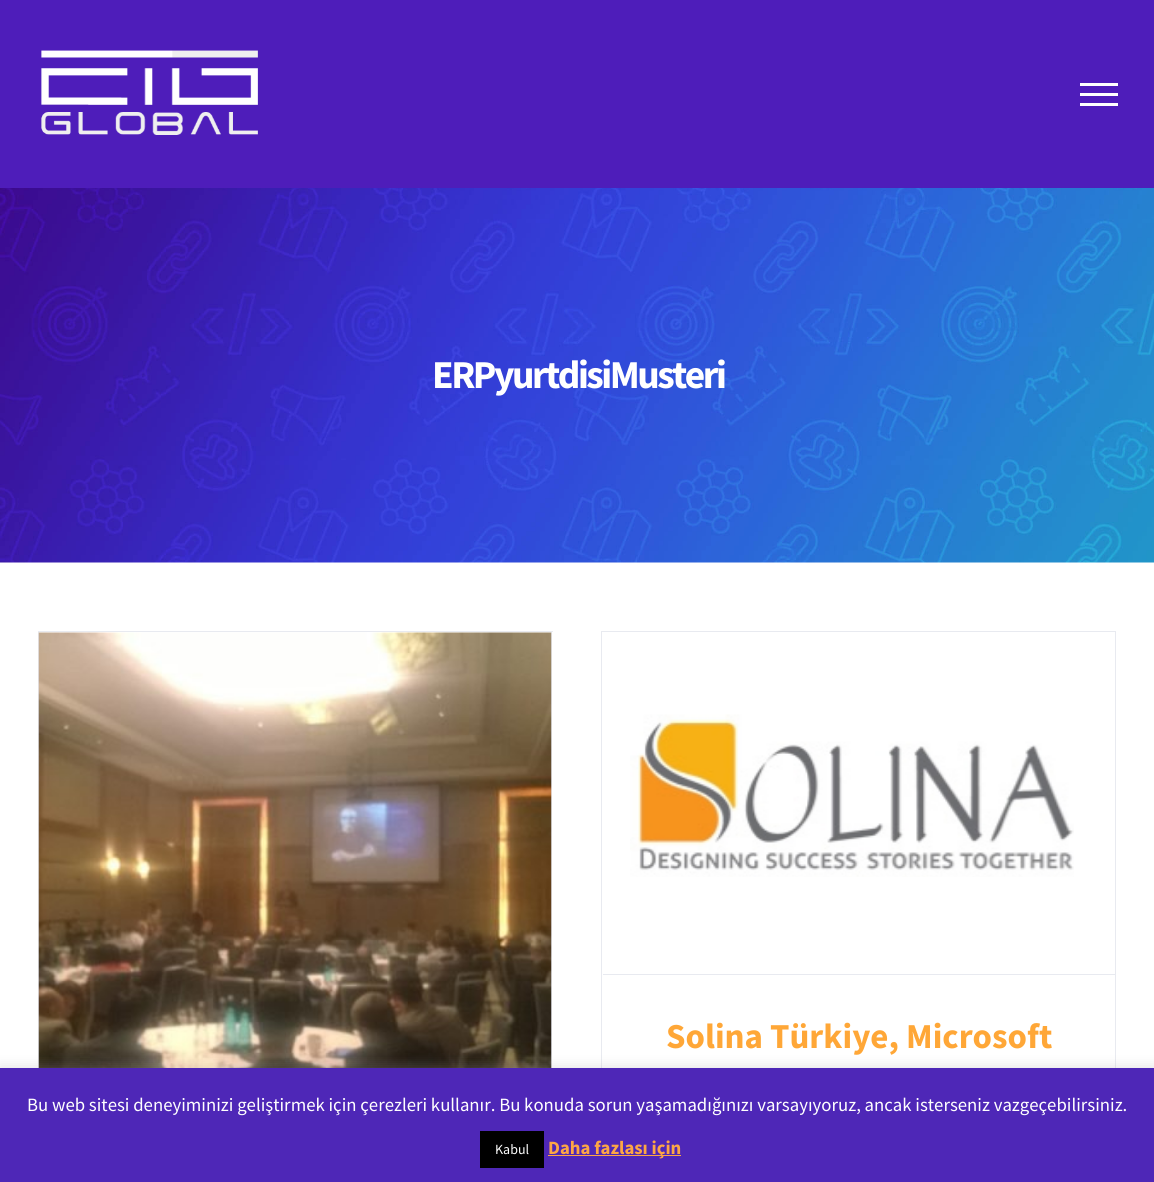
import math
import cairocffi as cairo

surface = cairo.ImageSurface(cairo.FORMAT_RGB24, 1154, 1182)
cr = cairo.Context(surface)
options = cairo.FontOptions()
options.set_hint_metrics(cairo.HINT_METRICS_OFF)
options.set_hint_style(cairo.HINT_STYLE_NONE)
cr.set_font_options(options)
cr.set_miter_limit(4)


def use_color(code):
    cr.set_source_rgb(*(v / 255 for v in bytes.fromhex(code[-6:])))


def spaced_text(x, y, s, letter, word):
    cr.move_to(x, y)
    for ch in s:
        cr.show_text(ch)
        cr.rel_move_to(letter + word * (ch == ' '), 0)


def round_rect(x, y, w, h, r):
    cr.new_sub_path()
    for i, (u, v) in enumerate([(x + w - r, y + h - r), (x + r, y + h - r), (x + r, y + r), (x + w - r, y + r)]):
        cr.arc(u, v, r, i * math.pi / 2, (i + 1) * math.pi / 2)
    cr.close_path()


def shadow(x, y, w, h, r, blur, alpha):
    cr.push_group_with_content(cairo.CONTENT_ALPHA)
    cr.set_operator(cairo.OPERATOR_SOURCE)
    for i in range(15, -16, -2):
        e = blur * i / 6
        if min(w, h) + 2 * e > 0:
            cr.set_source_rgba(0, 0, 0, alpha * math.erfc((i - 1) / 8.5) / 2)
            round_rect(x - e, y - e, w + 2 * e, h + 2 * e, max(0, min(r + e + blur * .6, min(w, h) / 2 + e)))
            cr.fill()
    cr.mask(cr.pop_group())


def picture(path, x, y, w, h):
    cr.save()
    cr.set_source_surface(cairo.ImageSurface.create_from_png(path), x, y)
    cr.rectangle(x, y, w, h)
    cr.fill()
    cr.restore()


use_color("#ffffff")
cr.paint()
use_color("#4e1dba")
cr.rectangle(0, 0, 1154, 188)
cr.fill()
picture("img1.png", 41, 50, 217, 85)
use_color("#ffffff")
cr.rectangle(1080, 83, 38, 3)
cr.fill()
cr.rectangle(1080, 93, 38, 3)
cr.fill()
cr.rectangle(1080, 103, 38, 3)
cr.fill()
picture("img2.png", 0, 188, 1154, 375)
cr.select_font_face("Source Sans Pro", cairo.FONT_SLANT_NORMAL, cairo.FONT_WEIGHT_BOLD)
cr.set_font_size(39.5)
spaced_text(432, 388, "ERPyurtdisiMusteri", -2.5, 0)
use_color("#e8eaf0")
cr.rectangle(38, 631, 515, 1)
cr.fill()
cr.rectangle(551, 631, 1, 437)
cr.fill()
cr.rectangle(38, 631, 1, 437)
cr.fill()
picture("img3.png", 38, 632, 514, 436)
cr.rectangle(601, 631, 515, 1)
cr.fill()
cr.rectangle(1115, 631, 1, 437)
cr.fill()
cr.rectangle(601, 631, 1, 437)
cr.fill()
cr.rectangle(603, 974, 512, 1)
cr.fill()
picture("img4.png", 630, 714, 444, 163)
cr.set_font_size(35)
use_color("#ffa737")
cr.move_to(666, 1048)
cr.show_text("Solina Türkiye, Microsoft")
use_color("#acabab")
shadow(0, 1066, 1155, 115, 0, 6, 0.3)
use_color("#4e27b7")
cr.rectangle(0, 1068, 1154, 114)
cr.fill()
cr.select_font_face("Source Sans Pro")
cr.set_font_size(18.75)
use_color("#ffffff")
cr.move_to(27, 1111)
cr.show_text("Bu web sitesi deneyiminizi geliştirmek için çerezleri kullanır. Bu konuda sorun yaşamadığınızı varsayıyoruz, ancak isterseniz vazgeçebilirsiniz.")
use_color("#000000")
cr.rectangle(480, 1131, 64, 37)
cr.fill()
cr.set_font_size(14)
use_color("#ffffff")
cr.move_to(495, 1154)
cr.show_text("Kabul")
use_color("#fda645")
cr.rectangle(548, 1155, 133, 1)
cr.fill()
cr.select_font_face("Source Sans Pro", cairo.FONT_SLANT_NORMAL, cairo.FONT_WEIGHT_BOLD)
cr.set_font_size(18.75)
cr.move_to(548, 1154)
cr.show_text("Daha fazlası için")
surface.write_to_png("result.png")
